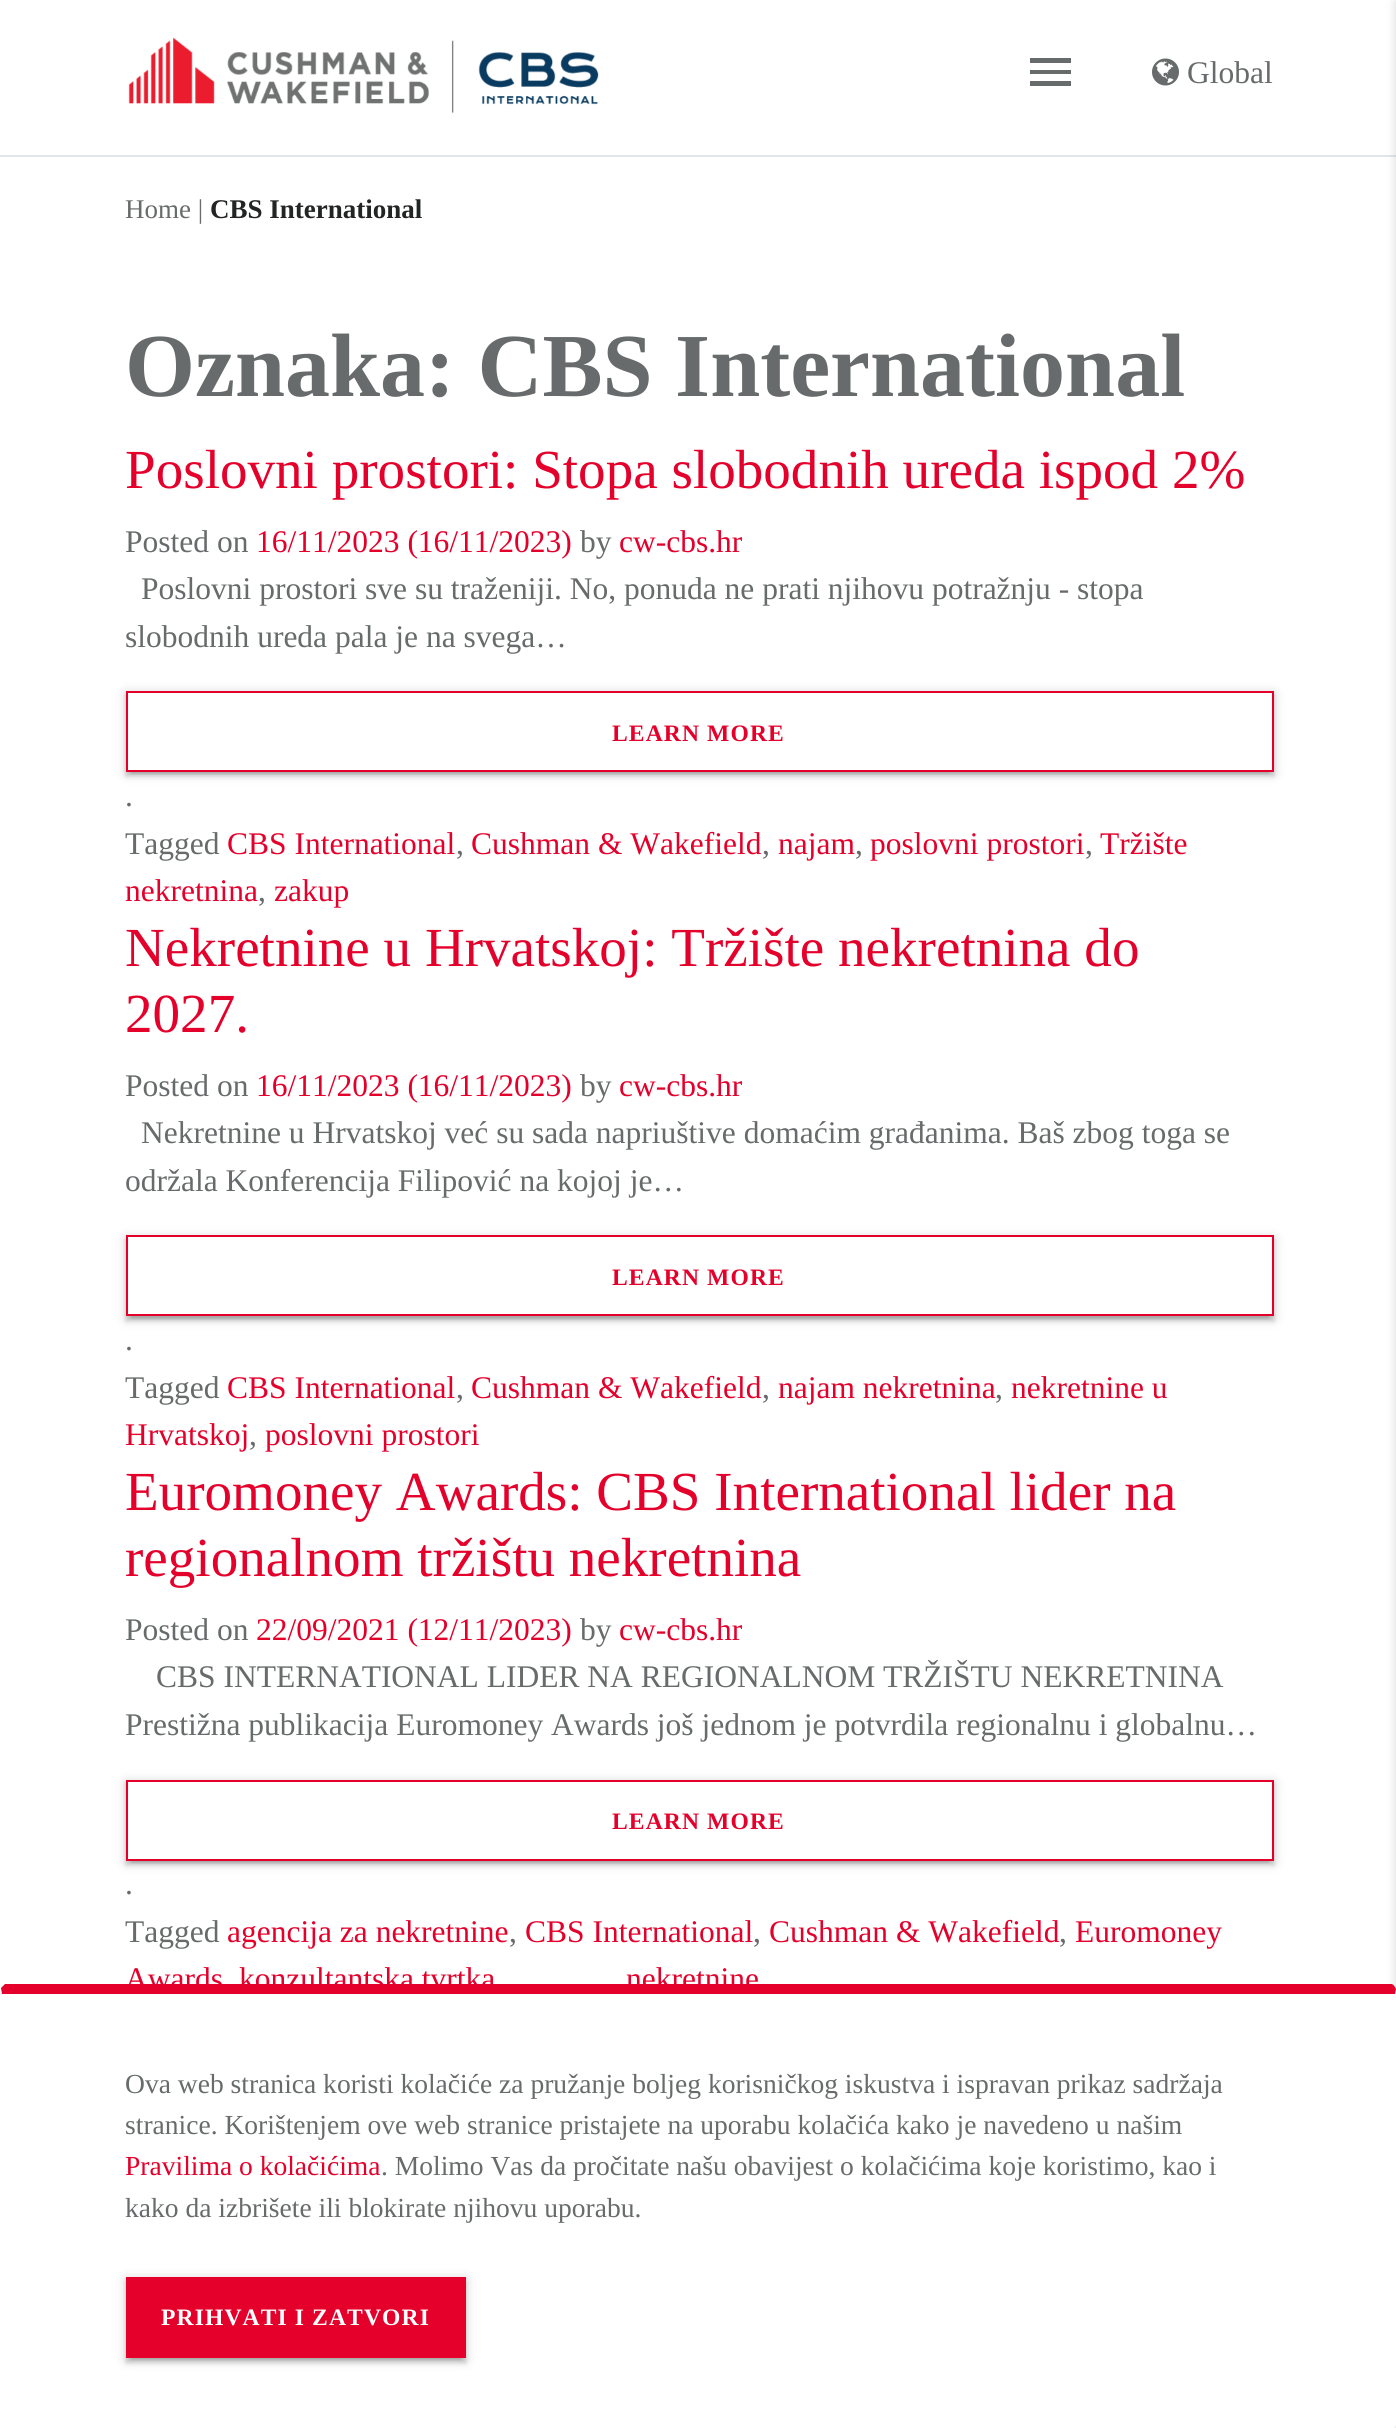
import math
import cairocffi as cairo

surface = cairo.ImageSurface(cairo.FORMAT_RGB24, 1396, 2428)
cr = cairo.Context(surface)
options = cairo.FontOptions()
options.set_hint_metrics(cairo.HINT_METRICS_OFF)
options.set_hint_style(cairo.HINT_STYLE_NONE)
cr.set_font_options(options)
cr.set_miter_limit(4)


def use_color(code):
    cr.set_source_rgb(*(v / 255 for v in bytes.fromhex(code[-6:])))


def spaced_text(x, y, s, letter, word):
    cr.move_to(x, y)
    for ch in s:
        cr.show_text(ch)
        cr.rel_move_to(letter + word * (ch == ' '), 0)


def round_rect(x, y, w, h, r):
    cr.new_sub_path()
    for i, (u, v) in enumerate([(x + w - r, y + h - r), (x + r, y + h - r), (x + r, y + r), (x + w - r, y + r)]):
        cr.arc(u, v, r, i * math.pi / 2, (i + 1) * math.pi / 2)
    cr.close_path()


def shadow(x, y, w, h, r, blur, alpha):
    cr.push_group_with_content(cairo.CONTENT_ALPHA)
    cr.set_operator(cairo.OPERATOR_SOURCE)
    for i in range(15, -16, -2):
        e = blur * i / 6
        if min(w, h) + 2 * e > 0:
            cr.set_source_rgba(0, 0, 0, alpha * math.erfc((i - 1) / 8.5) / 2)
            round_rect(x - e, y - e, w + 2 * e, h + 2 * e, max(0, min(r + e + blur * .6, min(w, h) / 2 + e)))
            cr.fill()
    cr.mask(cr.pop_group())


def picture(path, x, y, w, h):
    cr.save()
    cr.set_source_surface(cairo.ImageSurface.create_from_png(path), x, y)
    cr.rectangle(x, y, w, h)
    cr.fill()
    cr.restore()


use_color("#ffffff")
cr.paint()
use_color("#e1e6e8")
cr.rectangle(0, 155, 1396, 2)
cr.fill()
picture("img1.png", 128, 37, 471, 76)
use_color("#686b6b")
cr.new_path()
cr.move_to(1030, 58)
cr.line_to(1071, 58)
cr.line_to(1071, 63)
cr.line_to(1030, 63)
cr.close_path()
cr.move_to(1030, 74)
cr.line_to(1030, 70)
cr.line_to(1071, 70)
cr.line_to(1071, 74)
cr.close_path()
cr.move_to(1030, 86)
cr.line_to(1030, 81)
cr.line_to(1071, 81)
cr.line_to(1071, 86)
cr.close_path()
cr.fill()
picture("img2.png", 1152, 58, 27, 28)
cr.select_font_face("Liberation Serif")
cr.set_font_size(31.5)
cr.move_to(1187, 83)
cr.show_text("Global")
use_color("#000000")
shadow(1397, 2, 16, 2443, 0, 5.5, 0.2)
cr.set_font_size(27)
use_color("#686b6b")
cr.move_to(125, 218)
cr.show_text("Home |")
cr.select_font_face("Liberation Serif", cairo.FONT_SLANT_NORMAL, cairo.FONT_WEIGHT_BOLD)
use_color("#232424")
cr.move_to(210, 218)
cr.show_text("CBS International")
cr.set_font_size(90)
use_color("#686b6b")
cr.move_to(125, 396)
cr.show_text("Oznaka: CBS International")
cr.select_font_face("Liberation Serif")
cr.set_font_size(55.1)
use_color("#e4002b")
cr.move_to(125, 488)
cr.show_text("Poslovni prostori: Stopa slobodnih ureda ispod 2%")
cr.set_font_size(31.5)
use_color("#686b6b")
cr.move_to(125, 552)
cr.show_text("Posted on")
use_color("#e4002b")
cr.move_to(256, 552)
cr.show_text("16/11/2023 (16/11/2023)")
use_color("#686b6b")
cr.move_to(580, 552)
cr.show_text("by")
use_color("#e4002b")
cr.move_to(619, 552)
cr.show_text("cw-cbs.hr")
use_color("#686b6b")
cr.move_to(141, 599)
cr.show_text("Poslovni prostori sve su traženiji. No, ponuda ne prati njihovu potražnju - stopa")
cr.move_to(125, 647)
cr.show_text("slobodnih ureda pala je na svega…")
cr.save()
cr.set_fill_rule(cairo.FILL_RULE_EVEN_ODD)
cr.new_path()
cr.move_to(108, 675)
cr.line_to(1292, 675)
cr.line_to(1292, 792)
cr.line_to(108, 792)
cr.close_path()
cr.move_to(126, 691)
cr.line_to(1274, 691)
cr.line_to(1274, 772)
cr.line_to(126, 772)
cr.close_path()
cr.clip()
use_color("#000000")
shadow(126, 693, 1148, 81, 0, 5.5, 0.2)
cr.restore()
cr.save()
cr.rectangle(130, 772, 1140, 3)
cr.clip()
use_color("#000000")
shadow(131, 702, 1138, 72, 0, 1, 0.12)
cr.restore()
cr.save()
cr.set_fill_rule(cairo.FILL_RULE_EVEN_ODD)
cr.new_path()
cr.move_to(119, 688)
cr.line_to(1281, 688)
cr.line_to(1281, 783)
cr.line_to(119, 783)
cr.close_path()
cr.move_to(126, 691)
cr.line_to(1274, 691)
cr.line_to(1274, 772)
cr.line_to(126, 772)
cr.close_path()
cr.clip()
use_color("#000000")
shadow(126, 695, 1148, 81, 0, 2, 0.14)
cr.restore()
cr.rectangle(127, 692, 1146, 79)
use_color("#e4002b")
cr.stroke()
cr.select_font_face("Liberation Serif", cairo.FONT_SLANT_NORMAL, cairo.FONT_WEIGHT_BOLD)
cr.set_font_size(23.6)
spaced_text(612, 741, "LEARN MORE", 1.1, 0)
cr.select_font_face("Liberation Serif")
cr.set_font_size(31.5)
use_color("#686b6b")
cr.move_to(125, 806)
cr.show_text(".")
cr.move_to(125, 854)
cr.show_text("Tagged")
use_color("#e4002b")
cr.move_to(227, 854)
cr.show_text("CBS International")
use_color("#686b6b")
cr.move_to(456, 854)
cr.show_text(",")
use_color("#e4002b")
cr.move_to(471, 854)
cr.show_text("Cushman & Wakefield")
use_color("#686b6b")
cr.move_to(762, 854)
cr.show_text(",")
use_color("#e4002b")
cr.move_to(778, 854)
cr.show_text("najam")
use_color("#686b6b")
cr.move_to(855, 854)
cr.show_text(",")
use_color("#e4002b")
cr.move_to(870, 854)
cr.show_text("poslovni prostori")
use_color("#686b6b")
cr.move_to(1085, 854)
cr.show_text(",")
use_color("#e4002b")
cr.move_to(1100, 854)
cr.show_text("Tržište")
cr.move_to(125, 901)
cr.show_text("nekretnina")
use_color("#686b6b")
cr.move_to(258, 901)
cr.show_text(",")
use_color("#e4002b")
cr.move_to(274, 901)
cr.show_text("zakup")
cr.set_font_size(55.1)
cr.move_to(125, 966)
cr.show_text("Nekretnine u Hrvatskoj: Tržište nekretnina do")
cr.move_to(125, 1032)
cr.show_text("2027.")
cr.set_font_size(31.5)
use_color("#686b6b")
cr.move_to(125, 1096)
cr.show_text("Posted on")
use_color("#e4002b")
cr.move_to(256, 1096)
cr.show_text("16/11/2023 (16/11/2023)")
use_color("#686b6b")
cr.move_to(580, 1096)
cr.show_text("by")
use_color("#e4002b")
cr.move_to(619, 1096)
cr.show_text("cw-cbs.hr")
use_color("#686b6b")
cr.move_to(141, 1143)
cr.show_text("Nekretnine u Hrvatskoj već su sada napriuštive domaćim građanima. Baš zbog toga se")
cr.move_to(125, 1191)
cr.show_text("održala Konferencija Filipović na kojoj je…")
cr.save()
cr.set_fill_rule(cairo.FILL_RULE_EVEN_ODD)
cr.new_path()
cr.move_to(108, 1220)
cr.line_to(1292, 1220)
cr.line_to(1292, 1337)
cr.line_to(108, 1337)
cr.close_path()
cr.move_to(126, 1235)
cr.line_to(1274, 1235)
cr.line_to(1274, 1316)
cr.line_to(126, 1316)
cr.close_path()
cr.clip()
use_color("#000000")
shadow(126, 1238, 1148, 81, 0, 5.5, 0.2)
cr.restore()
cr.save()
cr.rectangle(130, 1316, 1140, 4)
cr.clip()
use_color("#000000")
shadow(131, 1247, 1138, 72, 0, 1, 0.12)
cr.restore()
cr.save()
cr.set_fill_rule(cairo.FILL_RULE_EVEN_ODD)
cr.new_path()
cr.move_to(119, 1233)
cr.line_to(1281, 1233)
cr.line_to(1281, 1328)
cr.line_to(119, 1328)
cr.close_path()
cr.move_to(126, 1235)
cr.line_to(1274, 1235)
cr.line_to(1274, 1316)
cr.line_to(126, 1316)
cr.close_path()
cr.clip()
use_color("#000000")
shadow(126, 1240, 1148, 81, 0, 2, 0.14)
cr.restore()
cr.rectangle(127, 1236, 1146, 79)
use_color("#e4002b")
cr.stroke()
cr.select_font_face("Liberation Serif", cairo.FONT_SLANT_NORMAL, cairo.FONT_WEIGHT_BOLD)
cr.set_font_size(23.6)
spaced_text(612, 1285, "LEARN MORE", 1.1, 0)
cr.select_font_face("Liberation Serif")
cr.set_font_size(31.5)
use_color("#686b6b")
cr.move_to(125, 1350)
cr.show_text(".")
cr.move_to(125, 1398)
cr.show_text("Tagged")
use_color("#e4002b")
cr.move_to(227, 1398)
cr.show_text("CBS International")
use_color("#686b6b")
cr.move_to(456, 1398)
cr.show_text(",")
use_color("#e4002b")
cr.move_to(471, 1398)
cr.show_text("Cushman & Wakefield")
use_color("#686b6b")
cr.move_to(762, 1398)
cr.show_text(",")
use_color("#e4002b")
cr.move_to(778, 1398)
cr.show_text("najam nekretnina")
use_color("#686b6b")
cr.move_to(995, 1398)
cr.show_text(",")
use_color("#e4002b")
cr.move_to(1011, 1398)
cr.show_text("nekretnine u")
cr.move_to(125, 1445)
cr.show_text("Hrvatskoj")
use_color("#686b6b")
cr.move_to(249, 1445)
cr.show_text(",")
use_color("#e4002b")
cr.move_to(265, 1445)
cr.show_text("poslovni prostori")
cr.set_font_size(55.1)
cr.move_to(125, 1510)
cr.show_text("Euromoney Awards: CBS International lider na")
cr.move_to(125, 1576)
cr.show_text("regionalnom tržištu nekretnina")
cr.set_font_size(31.5)
use_color("#686b6b")
cr.move_to(125, 1640)
cr.show_text("Posted on")
use_color("#e4002b")
cr.move_to(256, 1640)
cr.show_text("22/09/2021 (12/11/2023)")
use_color("#686b6b")
cr.move_to(580, 1640)
cr.show_text("by")
use_color("#e4002b")
cr.move_to(619, 1640)
cr.show_text("cw-cbs.hr")
use_color("#686b6b")
cr.move_to(156, 1687)
cr.show_text("CBS INTERNATIONAL LIDER NA REGIONALNOM TRŽIŠTU NEKRETNINA")
cr.move_to(125, 1735)
cr.show_text("Prestižna publikacija Euromoney Awards još jednom je potvrdila regionalnu i globalnu…")
cr.save()
cr.set_fill_rule(cairo.FILL_RULE_EVEN_ODD)
cr.new_path()
cr.move_to(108, 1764)
cr.line_to(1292, 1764)
cr.line_to(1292, 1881)
cr.line_to(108, 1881)
cr.close_path()
cr.move_to(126, 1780)
cr.line_to(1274, 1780)
cr.line_to(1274, 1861)
cr.line_to(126, 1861)
cr.close_path()
cr.clip()
use_color("#000000")
shadow(126, 1782, 1148, 81, 0, 5.5, 0.2)
cr.restore()
cr.save()
cr.rectangle(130, 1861, 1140, 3)
cr.clip()
use_color("#000000")
shadow(131, 1791, 1138, 72, 0, 1, 0.12)
cr.restore()
cr.save()
cr.set_fill_rule(cairo.FILL_RULE_EVEN_ODD)
cr.new_path()
cr.move_to(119, 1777)
cr.line_to(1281, 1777)
cr.line_to(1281, 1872)
cr.line_to(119, 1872)
cr.close_path()
cr.move_to(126, 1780)
cr.line_to(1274, 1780)
cr.line_to(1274, 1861)
cr.line_to(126, 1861)
cr.close_path()
cr.clip()
use_color("#000000")
shadow(126, 1784, 1148, 81, 0, 2, 0.14)
cr.restore()
cr.rectangle(127, 1781, 1146, 79)
use_color("#e4002b")
cr.stroke()
cr.select_font_face("Liberation Serif", cairo.FONT_SLANT_NORMAL, cairo.FONT_WEIGHT_BOLD)
cr.set_font_size(23.6)
spaced_text(612, 1829, "LEARN MORE", 1.1, 0)
cr.select_font_face("Liberation Serif")
cr.set_font_size(31.5)
use_color("#686b6b")
cr.move_to(125, 1894)
cr.show_text(".")
cr.move_to(125, 1942)
cr.show_text("Tagged")
use_color("#e4002b")
cr.move_to(227, 1942)
cr.show_text("agencija za nekretnine")
use_color("#686b6b")
cr.move_to(509, 1942)
cr.show_text(",")
use_color("#e4002b")
cr.move_to(525, 1942)
cr.show_text("CBS International")
use_color("#686b6b")
cr.move_to(753, 1942)
cr.show_text(",")
use_color("#e4002b")
cr.move_to(769, 1942)
cr.show_text("Cushman & Wakefield")
use_color("#686b6b")
cr.move_to(1059, 1942)
cr.show_text(",")
use_color("#e4002b")
cr.move_to(1075, 1942)
cr.show_text("Euromoney")
cr.move_to(125, 1989)
cr.show_text("Awards")
cr.move_to(239, 1989)
cr.show_text("konzultantska tvrtka")
cr.move_to(626, 1989)
cr.show_text("nekretnine")
use_color("#ffffff")
round_rect(0, 1985, 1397, 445, 9)
cr.fill()
use_color("#e4002b")
cr.new_path()
cr.move_to(1, 1988)
cr.curve_to(2, 1987, 4, 1985, 5, 1984)
cr.line_to(1392, 1984)
cr.curve_to(1394, 1985, 1395, 1987, 1396, 1989)
cr.line_to(1395, 1994)
cr.line_to(2, 1994)
cr.close_path()
cr.fill()
cr.set_font_size(27.55)
use_color("#686b6b")
cr.move_to(125, 2093)
cr.show_text("Ova web stranica koristi kolačiće za pružanje boljeg korisničkog iskustva i ispravan prikaz sadržaja")
cr.move_to(125, 2134)
cr.show_text("stranice. Korištenjem ove web stranice pristajete na uporabu kolačića kako je navedeno u našim")
use_color("#e4002b")
cr.move_to(125, 2175)
cr.show_text("Pravilima o kolačićima")
use_color("#686b6b")
cr.move_to(381, 2175)
cr.show_text(". Molimo Vas da pročitate našu obavijest o kolačićima koje koristimo, kao i")
cr.move_to(125, 2217)
cr.show_text("kako da izbrišete ili blokirate njihovu uporabu.")
use_color("#000000")
shadow(126, 2279, 340, 81, 0, 5.5, 0.2)
shadow(131, 2288, 330, 72, 0, 1, 0.12)
shadow(126, 2282, 340, 81, 0, 2, 0.14)
use_color("#e4002b")
cr.rectangle(126, 2277, 340, 81)
cr.fill()
cr.select_font_face("Liberation Serif", cairo.FONT_SLANT_NORMAL, cairo.FONT_WEIGHT_BOLD)
cr.set_font_size(23.6)
use_color("#ffffff")
spaced_text(161, 2325, "PRIHVATI I ZATVORI", 1.1, 0)
surface.write_to_png("result.png")
